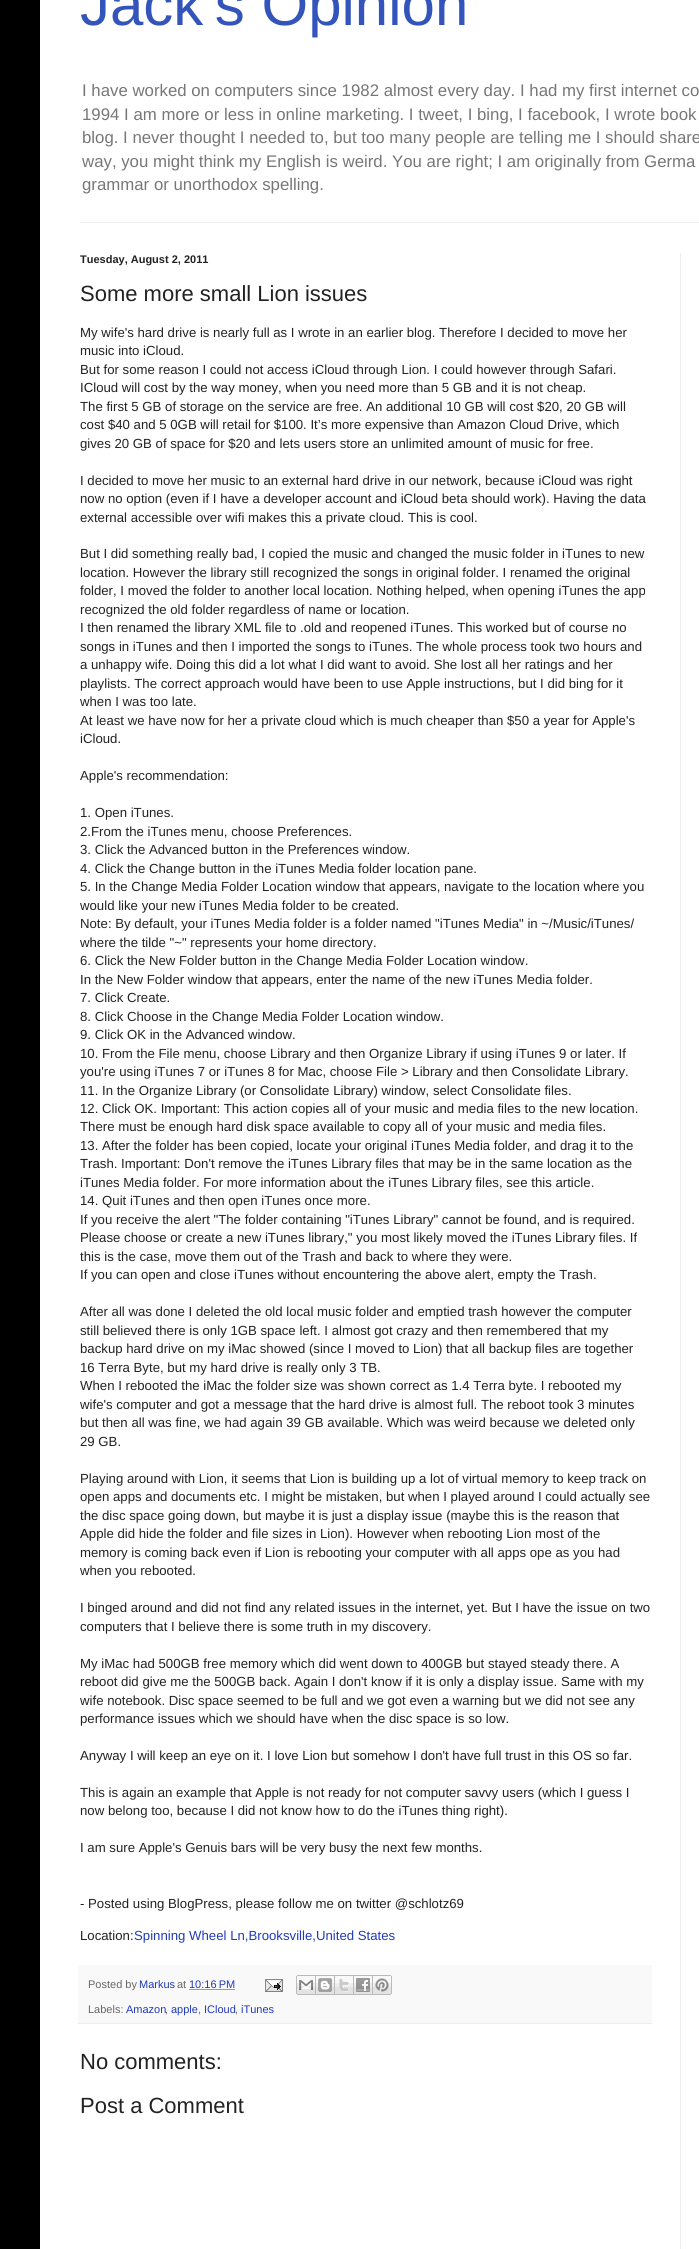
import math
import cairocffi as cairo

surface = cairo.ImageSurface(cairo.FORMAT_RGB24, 699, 2249)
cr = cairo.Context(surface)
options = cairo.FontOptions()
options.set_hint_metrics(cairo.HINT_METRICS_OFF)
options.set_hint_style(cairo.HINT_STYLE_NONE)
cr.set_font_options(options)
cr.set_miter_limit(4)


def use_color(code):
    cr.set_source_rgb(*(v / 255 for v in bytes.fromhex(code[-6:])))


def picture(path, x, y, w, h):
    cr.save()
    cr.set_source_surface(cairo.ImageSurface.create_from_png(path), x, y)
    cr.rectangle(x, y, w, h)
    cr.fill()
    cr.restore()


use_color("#000000")
cr.paint()
use_color("#ffffff")
cr.rectangle(40, 0, 659, 2249)
cr.fill()
cr.select_font_face("Liberation Sans")
cr.set_font_size(60)
use_color("#3254bb")
cr.move_to(80, 25)
cr.show_text("Jack's Opinion")
cr.set_font_size(16.8)
use_color("#777777")
cr.move_to(82, 96)
cr.show_text("I have worked on computers since 1982 almost every day. I had my first internet co")
cr.move_to(82, 120)
cr.show_text("1994 I am more or less in online marketing. I tweet, I bing, I facebook, I wrote book")
cr.move_to(82, 143)
cr.show_text("blog. I never thought I needed to, but too many people are telling me I should share")
cr.move_to(82, 167)
cr.show_text("way, you might think my English is weird. You are right; I am originally from Germa")
cr.move_to(82, 190)
cr.show_text("grammar or unorthodox spelling.")
use_color("#eeeeee")
cr.rectangle(80, 222, 619, 1)
cr.fill()
cr.select_font_face("Liberation Sans", cairo.FONT_SLANT_NORMAL, cairo.FONT_WEIGHT_BOLD)
cr.set_font_size(11)
use_color("#222222")
cr.move_to(80, 263)
cr.show_text("Tuesday, August 2, 2011")
cr.select_font_face("Liberation Sans")
cr.set_font_size(22)
cr.move_to(80, 301)
cr.show_text("Some more small Lion issues")
cr.set_font_size(13.2)
cr.move_to(80, 337)
cr.show_text("My wife's hard drive is nearly full as I wrote in an earlier blog. Therefore I decided to move her")
cr.move_to(80, 355)
cr.show_text("music into iCloud.")
cr.move_to(80, 374)
cr.show_text("But for some reason I could not access iCloud through Lion. I could however through Safari.")
cr.move_to(80, 392)
cr.show_text("ICloud will cost by the way money, when you need more than 5 GB and it is not cheap.")
cr.move_to(80, 411)
cr.show_text("The first 5 GB of storage on the service are free. An additional 10 GB will cost $20, 20 GB will")
cr.move_to(80, 429)
cr.show_text("cost $40 and 5 0GB will retail for $100. It’s more expensive than Amazon Cloud Drive, which")
cr.move_to(80, 448)
cr.show_text("gives 20 GB of space for $20 and lets users store an unlimited amount of music for free.")
cr.move_to(80, 485)
cr.show_text("I decided to move her music to an external hard drive in our network, because iCloud was right")
cr.move_to(80, 503)
cr.show_text("now no option (even if I have a developer account and iCloud beta should work). Having the data")
cr.move_to(80, 522)
cr.show_text("external accessible over wifi makes this a private cloud. This is cool.")
cr.move_to(80, 558)
cr.show_text("But I did something really bad, I copied the music and changed the music folder in iTunes to new")
cr.move_to(80, 577)
cr.show_text("location. However the library still recognized the songs in original folder. I renamed the original")
cr.move_to(80, 595)
cr.show_text("folder, I moved the folder to another local location. Nothing helped, when opening iTunes the app")
cr.move_to(80, 614)
cr.show_text("recognized the old folder regardless of name or location.")
cr.move_to(80, 632)
cr.show_text("I then renamed the library XML file to .old and reopened iTunes. This worked but of course no")
cr.move_to(80, 651)
cr.show_text("songs in iTunes and then I imported the songs to iTunes. The whole process took two hours and")
cr.move_to(80, 669)
cr.show_text("a unhappy wife. Doing this did a lot what I did want to avoid. She lost all her ratings and her")
cr.move_to(80, 688)
cr.show_text("playlists. The correct approach would have been to use Apple instructions, but I did bing for it")
cr.move_to(80, 706)
cr.show_text("when I was too late.")
cr.move_to(80, 725)
cr.show_text("At least we have now for her a private cloud which is much cheaper than $50 a year for Apple's")
cr.move_to(80, 743)
cr.show_text("iCloud.")
cr.move_to(80, 780)
cr.show_text("Apple's recommendation:")
cr.move_to(80, 817)
cr.show_text("1. Open iTunes.")
cr.move_to(80, 836)
cr.show_text("2.From the iTunes menu, choose Preferences.")
cr.move_to(80, 854)
cr.show_text("3. Click the Advanced button in the Preferences window.")
cr.move_to(80, 873)
cr.show_text("4. Click the Change button in the iTunes Media folder location pane.")
cr.move_to(80, 891)
cr.show_text("5. In the Change Media Folder Location window that appears, navigate to the location where you")
cr.move_to(80, 910)
cr.show_text("would like your new iTunes Media folder to be created.")
cr.move_to(80, 928)
cr.show_text("Note: By default, your iTunes Media folder is a folder named \"iTunes Media\" in ~/Music/iTunes/")
cr.move_to(80, 947)
cr.show_text("where the tilde \"~\" represents your home directory.")
cr.move_to(80, 965)
cr.show_text("6. Click the New Folder button in the Change Media Folder Location window.")
cr.move_to(80, 984)
cr.show_text("In the New Folder window that appears, enter the name of the new iTunes Media folder.")
cr.move_to(80, 1002)
cr.show_text("7. Click Create.")
cr.move_to(80, 1021)
cr.show_text("8. Click Choose in the Change Media Folder Location window.")
cr.move_to(80, 1039)
cr.show_text("9. Click OK in the Advanced window.")
cr.move_to(80, 1058)
cr.show_text("10. From the File menu, choose Library and then Organize Library if using iTunes 9 or later. If")
cr.move_to(80, 1076)
cr.show_text("you're using iTunes 7 or iTunes 8 for Mac, choose File > Library and then Consolidate Library.")
cr.move_to(80, 1095)
cr.show_text("11. In the Organize Library (or Consolidate Library) window, select Consolidate files.")
cr.move_to(80, 1113)
cr.show_text("12. Click OK. Important: This action copies all of your music and media files to the new location.")
cr.move_to(80, 1131)
cr.show_text("There must be enough hard disk space available to copy all of your music and media files.")
cr.move_to(80, 1150)
cr.show_text("13. After the folder has been copied, locate your original iTunes Media folder, and drag it to the")
cr.move_to(80, 1168)
cr.show_text("Trash. Important: Don't remove the iTunes Library files that may be in the same location as the")
cr.move_to(80, 1187)
cr.show_text("iTunes Media folder. For more information about the iTunes Library files, see this article.")
cr.move_to(80, 1205)
cr.show_text("14. Quit iTunes and then open iTunes once more.")
cr.move_to(80, 1224)
cr.show_text("If you receive the alert \"The folder containing \"iTunes Library\" cannot be found, and is required.")
cr.move_to(80, 1242)
cr.show_text("Please choose or create a new iTunes library,\" you most likely moved the iTunes Library files. If")
cr.move_to(80, 1261)
cr.show_text("this is the case, move them out of the Trash and back to where they were.")
cr.move_to(80, 1279)
cr.show_text("If you can open and close iTunes without encountering the above alert, empty the Trash.")
cr.move_to(80, 1316)
cr.show_text("After all was done I deleted the old local music folder and emptied trash however the computer")
cr.move_to(80, 1335)
cr.show_text("still believed there is only 1GB space left. I almost got crazy and then remembered that my")
cr.move_to(80, 1353)
cr.show_text("backup hard drive on my iMac showed (since I moved to Lion) that all backup files are together")
cr.move_to(80, 1372)
cr.show_text("16 Terra Byte, but my hard drive is really only 3 TB.")
cr.move_to(80, 1390)
cr.show_text("When I rebooted the iMac the folder size was shown correct as 1.4 Terra byte. I rebooted my")
cr.move_to(80, 1409)
cr.show_text("wife's computer and got a message that the hard drive is almost full. The reboot took 3 minutes")
cr.move_to(80, 1427)
cr.show_text("but then all was fine, we had again 39 GB available. Which was weird because we deleted only")
cr.move_to(80, 1446)
cr.show_text("29 GB.")
cr.move_to(80, 1483)
cr.show_text("Playing around with Lion, it seems that Lion is building up a lot of virtual memory to keep track on")
cr.move_to(80, 1501)
cr.show_text("open apps and documents etc. I might be mistaken, but when I played around I could actually see")
cr.move_to(80, 1520)
cr.show_text("the disc space going down, but maybe it is just a display issue (maybe this is the reason that")
cr.move_to(80, 1538)
cr.show_text("Apple did hide the folder and file sizes in Lion). However when rebooting Lion most of the")
cr.move_to(80, 1557)
cr.show_text("memory is coming back even if Lion is rebooting your computer with all apps ope as you had")
cr.move_to(80, 1575)
cr.show_text("when you rebooted.")
cr.move_to(80, 1612)
cr.show_text("I binged around and did not find any related issues in the internet, yet. But I have the issue on two")
cr.move_to(80, 1631)
cr.show_text("computers that I believe there is some truth in my discovery.")
cr.move_to(80, 1668)
cr.show_text("My iMac had 500GB free memory which did went down to 400GB but stayed steady there. A")
cr.move_to(80, 1686)
cr.show_text("reboot did give me the 500GB back. Again I don't know if it is only a display issue. Same with my")
cr.move_to(80, 1705)
cr.show_text("wife notebook. Disc space seemed to be full and we got even a warning but we did not see any")
cr.move_to(80, 1723)
cr.show_text("performance issues which we should have when the disc space is so low.")
cr.move_to(80, 1760)
cr.show_text("Anyway I will keep an eye on it. I love Lion but somehow I don't have full trust in this OS so far.")
cr.move_to(80, 1797)
cr.show_text("This is again an example that Apple is not ready for not computer savvy users (which I guess I")
cr.move_to(80, 1815)
cr.show_text("now belong too, because I did not know how to do the iTunes thing right).")
cr.move_to(80, 1852)
cr.show_text("I am sure Apple's Genuis bars will be very busy the next few months.")
cr.move_to(80, 1908)
cr.show_text("- Posted using BlogPress, please follow me on twitter @schlotz69")
cr.move_to(80, 1940)
cr.show_text("Location:")
use_color("#213abb")
cr.move_to(134, 1940)
cr.show_text("Spinning Wheel Ln,Brooksville,United States")
use_color("#f9f9f9")
cr.rectangle(78, 1965, 574, 58)
cr.fill()
use_color("#eeeeee")
cr.rectangle(78, 2023, 574, 1)
cr.fill()
cr.set_font_size(11)
use_color("#666666")
cr.move_to(88, 1988)
cr.show_text("Posted by")
use_color("#213abb")
cr.move_to(139, 1988)
cr.show_text("Markus")
use_color("#666666")
cr.move_to(177, 1988)
cr.show_text("at")
use_color("#213abb")
cr.move_to(189, 1988)
cr.show_text("10:16 PM")
cr.new_path()
cr.move_to(189.5, 1989.5)
cr.line_to(235, 1989.5)
cr.set_line_width(1)
cr.set_dash([1, 1])
cr.stroke()
picture("img1.png", 265, 1979, 18, 13)
picture("img2.png", 296, 1975, 20, 20)
picture("img3.png", 316, 1975, 19, 20)
picture("img4.png", 335, 1975, 19, 20)
picture("img5.png", 354, 1975, 19, 20)
picture("img6.png", 373, 1975, 19, 20)
use_color("#666666")
cr.move_to(88, 2013)
cr.show_text("Labels:")
use_color("#213abb")
cr.move_to(126, 2013)
cr.show_text("Amazon")
use_color("#666666")
cr.move_to(165, 2013)
cr.show_text(",")
use_color("#213abb")
cr.move_to(171, 2013)
cr.show_text("apple")
use_color("#666666")
cr.move_to(198, 2013)
cr.show_text(",")
use_color("#213abb")
cr.move_to(204, 2013)
cr.show_text("ICloud")
use_color("#666666")
cr.move_to(235, 2013)
cr.show_text(",")
use_color("#213abb")
cr.move_to(241, 2013)
cr.show_text("iTunes")
cr.set_font_size(22)
use_color("#222222")
cr.move_to(80, 2069)
cr.show_text("No comments:")
cr.move_to(80, 2113)
cr.show_text("Post a Comment")
use_color("#eeeeee")
cr.rectangle(680, 253, 1, 1996)
cr.fill()
surface.write_to_png("result.png")
